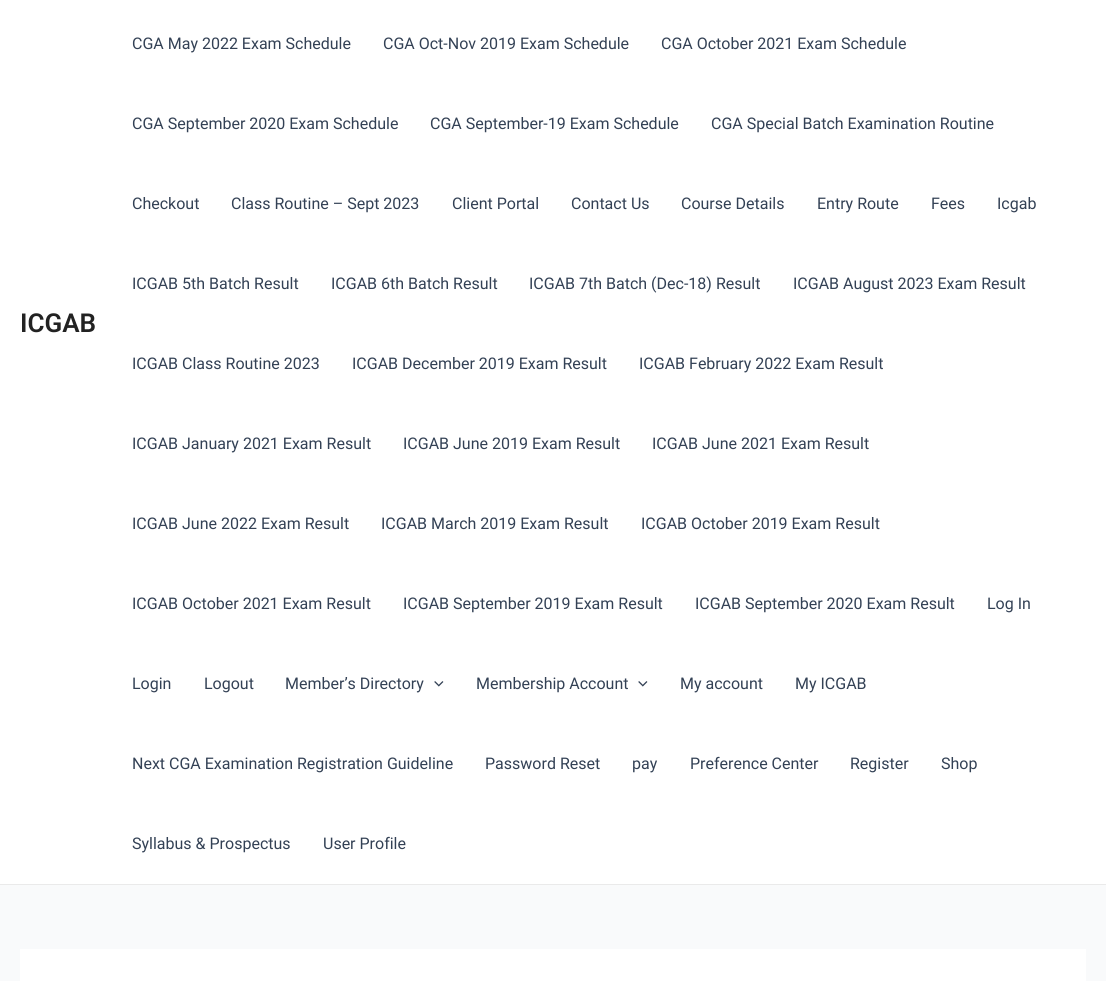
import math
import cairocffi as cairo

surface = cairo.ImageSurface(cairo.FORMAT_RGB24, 1106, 981)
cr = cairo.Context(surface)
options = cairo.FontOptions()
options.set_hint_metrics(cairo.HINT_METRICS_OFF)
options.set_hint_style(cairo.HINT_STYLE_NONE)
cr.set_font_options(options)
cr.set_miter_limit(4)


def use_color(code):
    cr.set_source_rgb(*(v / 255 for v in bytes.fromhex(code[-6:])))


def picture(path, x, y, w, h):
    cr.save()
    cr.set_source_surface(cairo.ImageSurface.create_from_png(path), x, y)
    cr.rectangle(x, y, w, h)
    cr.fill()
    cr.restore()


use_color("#f9fafb")
cr.paint()
use_color("#ffffff")
cr.rectangle(0, 0, 1106, 884)
cr.fill()
use_color("#eaeaea")
cr.rectangle(0, 884, 1106, 1)
cr.fill()
cr.select_font_face("Roboto SemiBold")
cr.set_font_size(26)
use_color("#222222")
cr.move_to(20, 332)
cr.show_text("ICGAB")
cr.select_font_face("Roboto")
cr.set_font_size(16)
use_color("#334155")
cr.move_to(132, 49)
cr.show_text("CGA May 2022 Exam Schedule")
cr.move_to(383, 49)
cr.show_text("CGA Oct-Nov 2019 Exam Schedule")
cr.move_to(661, 49)
cr.show_text("CGA October 2021 Exam Schedule")
cr.move_to(132, 129)
cr.show_text("CGA September 2020 Exam Schedule")
cr.move_to(430, 129)
cr.show_text("CGA September-19 Exam Schedule")
cr.move_to(711, 129)
cr.show_text("CGA Special Batch Examination Routine")
cr.move_to(132, 209)
cr.show_text("Checkout")
cr.move_to(231, 209)
cr.show_text("Class Routine – Sept 2023")
cr.move_to(452, 209)
cr.show_text("Client Portal")
cr.move_to(571, 209)
cr.show_text("Contact Us")
cr.move_to(681, 209)
cr.show_text("Course Details")
cr.move_to(817, 209)
cr.show_text("Entry Route")
cr.move_to(931, 209)
cr.show_text("Fees")
cr.move_to(997, 209)
cr.show_text("Icgab")
cr.move_to(132, 289)
cr.show_text("ICGAB 5th Batch Result")
cr.move_to(331, 289)
cr.show_text("ICGAB 6th Batch Result")
cr.move_to(529, 289)
cr.show_text("ICGAB 7th Batch (Dec-18) Result")
cr.move_to(793, 289)
cr.show_text("ICGAB August 2023 Exam Result")
cr.move_to(132, 369)
cr.show_text("ICGAB Class Routine 2023")
cr.move_to(352, 369)
cr.show_text("ICGAB December 2019 Exam Result")
cr.move_to(639, 369)
cr.show_text("ICGAB February 2022 Exam Result")
cr.move_to(132, 449)
cr.show_text("ICGAB January 2021 Exam Result")
cr.move_to(403, 449)
cr.show_text("ICGAB June 2019 Exam Result")
cr.move_to(652, 449)
cr.show_text("ICGAB June 2021 Exam Result")
cr.move_to(132, 529)
cr.show_text("ICGAB June 2022 Exam Result")
cr.move_to(381, 529)
cr.show_text("ICGAB March 2019 Exam Result")
cr.move_to(641, 529)
cr.show_text("ICGAB October 2019 Exam Result")
cr.move_to(132, 609)
cr.show_text("ICGAB October 2021 Exam Result")
cr.move_to(403, 609)
cr.show_text("ICGAB September 2019 Exam Result")
cr.move_to(695, 609)
cr.show_text("ICGAB September 2020 Exam Result")
cr.move_to(987, 609)
cr.show_text("Log In")
cr.move_to(132, 689)
cr.show_text("Login")
cr.move_to(204, 689)
cr.show_text("Logout")
cr.move_to(285, 689)
cr.show_text("Member’s Directory")
picture("img1.png", 434, 681, 10, 6)
cr.move_to(476, 689)
cr.show_text("Membership Account")
picture("img1.png", 638, 681, 10, 6)
cr.move_to(680, 689)
cr.show_text("My account")
cr.move_to(795, 689)
cr.show_text("My ICGAB")
cr.move_to(132, 769)
cr.show_text("Next CGA Examination Registration Guideline")
cr.move_to(485, 769)
cr.show_text("Password Reset")
cr.move_to(632, 769)
cr.show_text("pay")
cr.move_to(690, 769)
cr.show_text("Preference Center")
cr.move_to(850, 769)
cr.show_text("Register")
cr.move_to(941, 769)
cr.show_text("Shop")
cr.move_to(132, 849)
cr.show_text("Syllabus & Prospectus")
cr.move_to(323, 849)
cr.show_text("User Profile")
use_color("#ffffff")
cr.rectangle(20, 949, 1066, 32)
cr.fill()
surface.write_to_png("result.png")
